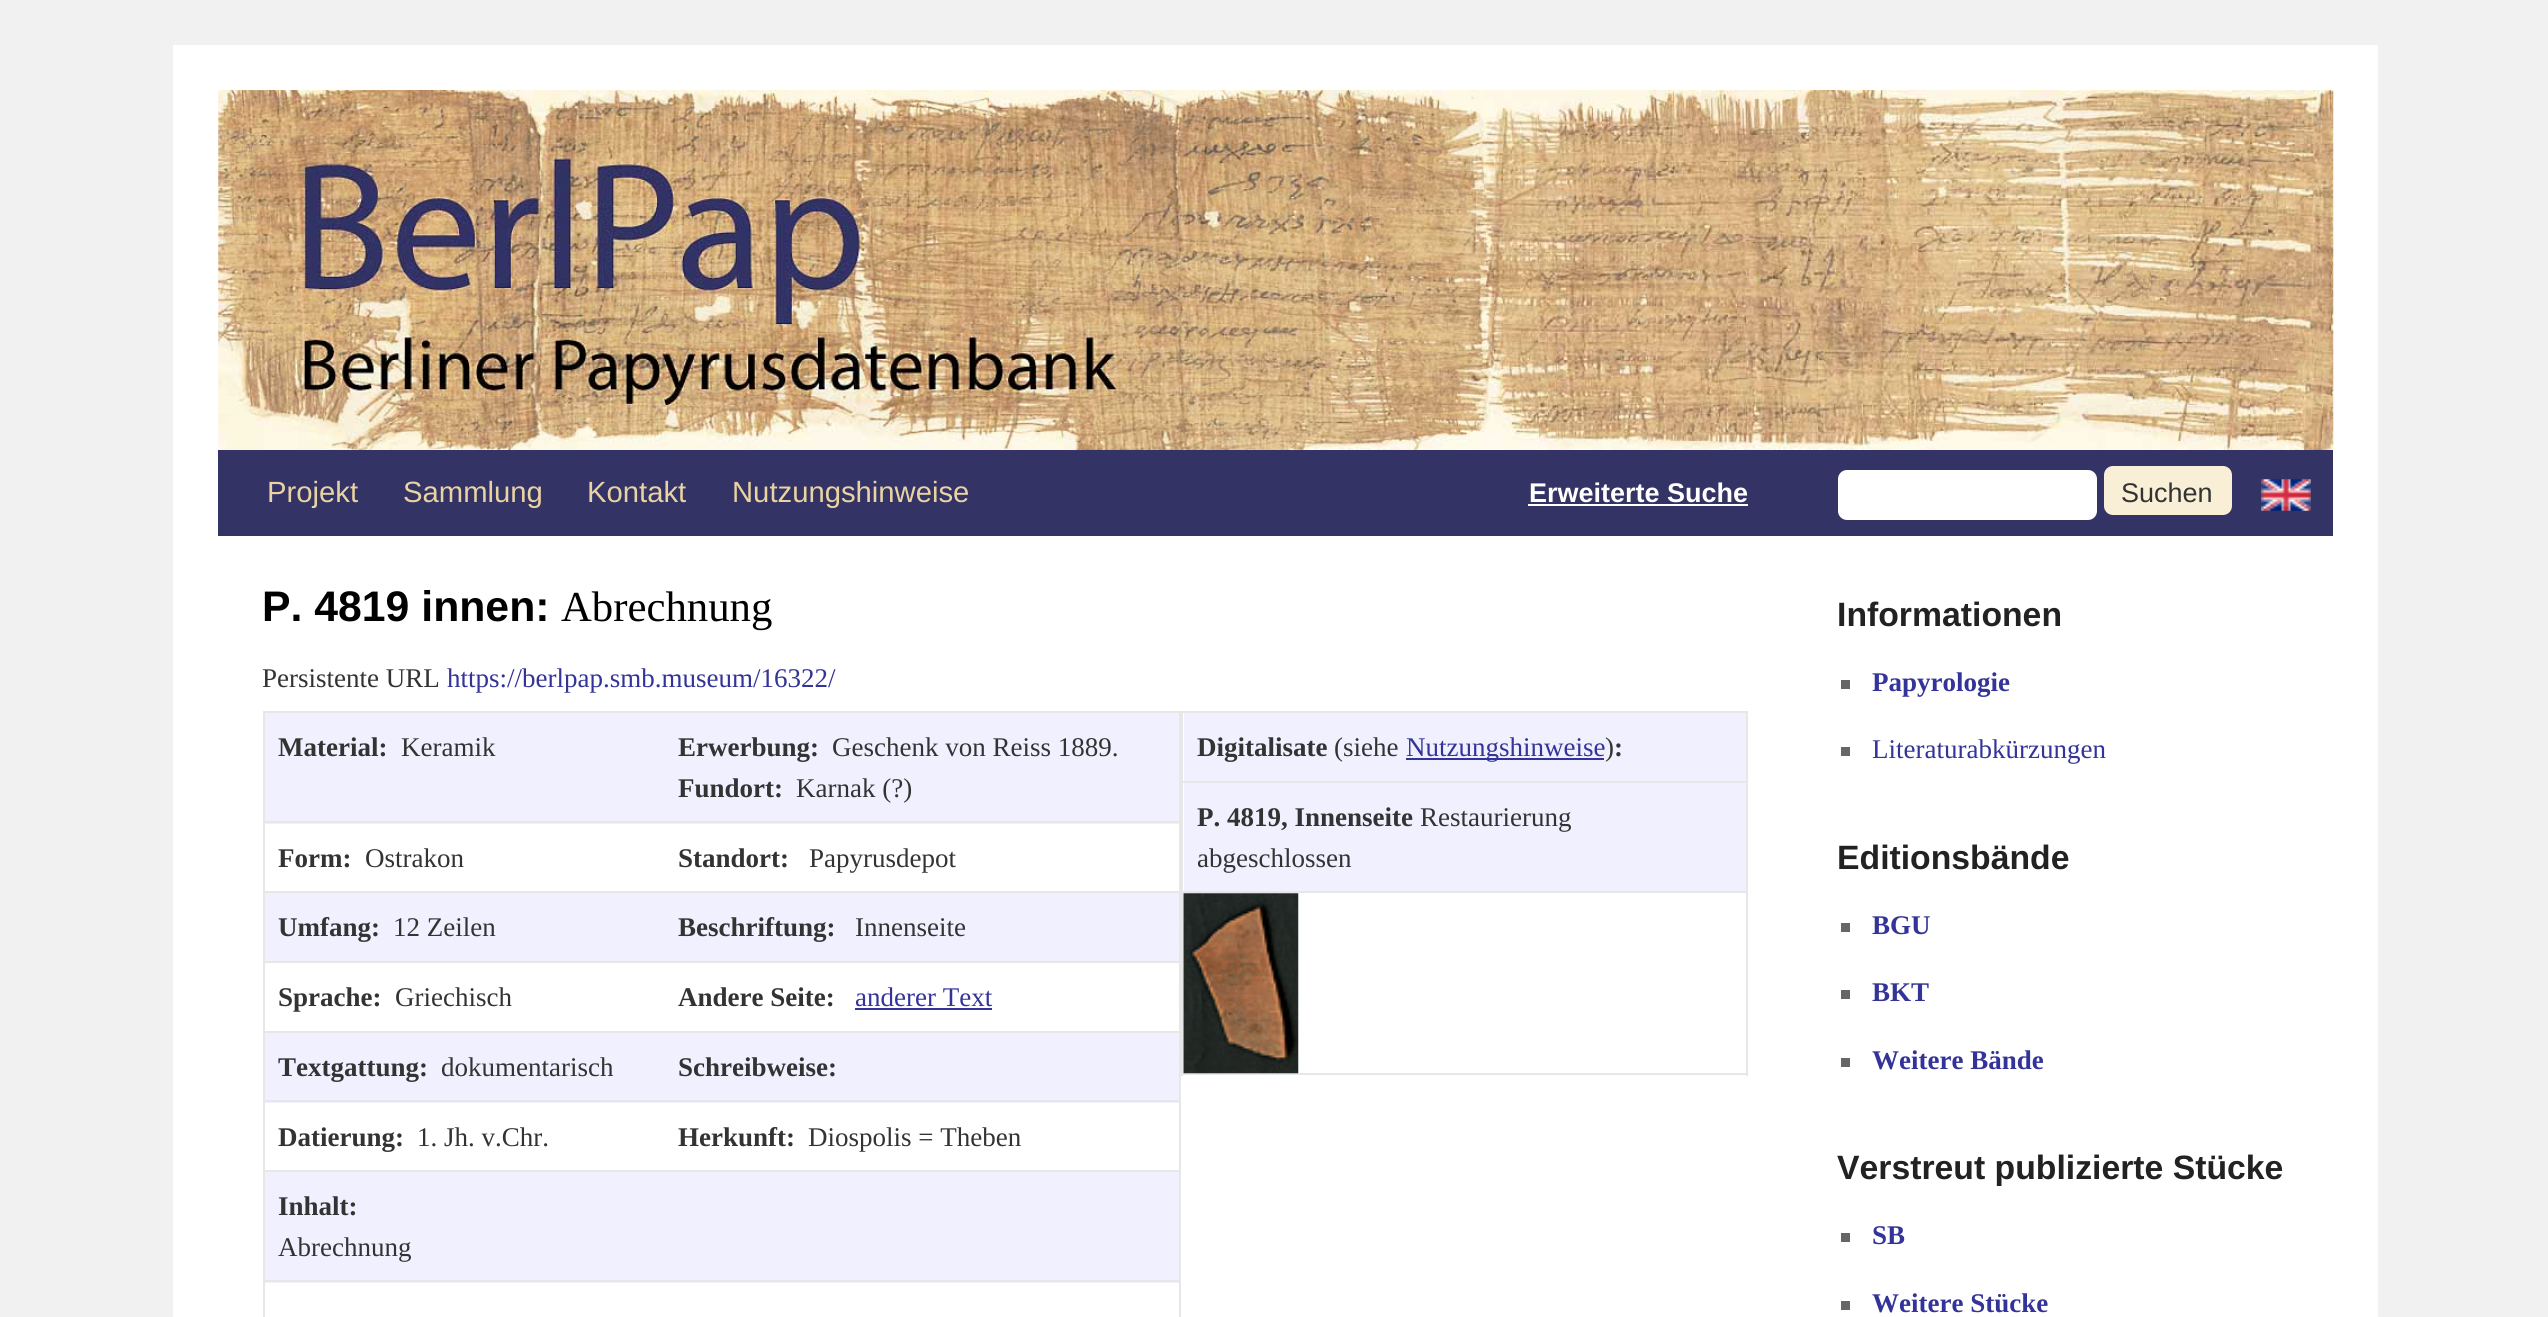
import math
import cairocffi as cairo

surface = cairo.ImageSurface(cairo.FORMAT_RGB24, 2548, 1317)
cr = cairo.Context(surface)
options = cairo.FontOptions()
options.set_hint_metrics(cairo.HINT_METRICS_OFF)
options.set_hint_style(cairo.HINT_STYLE_NONE)
cr.set_font_options(options)
cr.set_miter_limit(4)


def use_color(code):
    cr.set_source_rgb(*(v / 255 for v in bytes.fromhex(code[-6:])))


def round_rect(x, y, w, h, r):
    cr.new_sub_path()
    for i, (u, v) in enumerate([(x + w - r, y + h - r), (x + r, y + h - r), (x + r, y + r), (x + w - r, y + r)]):
        cr.arc(u, v, r, i * math.pi / 2, (i + 1) * math.pi / 2)
    cr.close_path()


def picture(path, x, y, w, h):
    cr.save()
    cr.set_source_surface(cairo.ImageSurface.create_from_png(path), x, y)
    cr.rectangle(x, y, w, h)
    cr.fill()
    cr.restore()


use_color("#f1f1f1")
cr.paint()
use_color("#ffffff")
cr.rectangle(173, 45, 2205, 1272)
cr.fill()
picture("img1.png", 218, 90, 1267, 360)
picture("img2.png", 1485, 90, 849, 360)
use_color("#333366")
cr.rectangle(218, 450, 2115, 86)
cr.fill()
cr.select_font_face("Liberation Sans")
cr.set_font_size(29.25)
use_color("#e9d3a3")
cr.move_to(267, 502)
cr.show_text("Projekt")
cr.move_to(403, 502)
cr.show_text("Sammlung")
cr.move_to(587, 502)
cr.show_text("Kontakt")
cr.move_to(732, 502)
cr.show_text("Nutzungshinweise")
cr.select_font_face("Liberation Sans", cairo.FONT_SLANT_NORMAL, cairo.FONT_WEIGHT_BOLD)
cr.set_font_size(27)
use_color("#ffffff")
cr.move_to(1529, 502)
cr.show_text("Erweiterte Suche")
cr.rectangle(1528, 504, 220, 2)
cr.fill()
round_rect(1838, 470, 259, 50, 9)
cr.fill()
use_color("#f9efd6")
round_rect(2106.5, 468.5, 123, 44, 6.5)
cr.fill_preserve()
cr.set_line_width(5)
cr.stroke()
cr.select_font_face("Liberation Sans")
use_color("#333333")
cr.move_to(2121, 502)
cr.show_text("Suchen")
picture("img3.png", 2261, 479, 50, 32)
cr.select_font_face("Liberation Sans", cairo.FONT_SLANT_NORMAL, cairo.FONT_WEIGHT_BOLD)
cr.set_font_size(42.75)
use_color("#000000")
cr.move_to(262, 621)
cr.show_text("P. 4819 innen:")
cr.select_font_face("Liberation Serif")
cr.move_to(561, 621)
cr.show_text("Abrechnung")
cr.set_font_size(27)
use_color("#333333")
cr.move_to(262, 687)
cr.show_text("Persistente URL")
use_color("#333399")
cr.move_to(447, 687)
cr.show_text("https://berlpap.smb.museum/16322/")
use_color("#e7e7e7")
cr.rectangle(263, 711, 1485, 2)
cr.fill()
cr.rectangle(1179, 711, 2, 606)
cr.fill()
cr.rectangle(263, 711, 2, 606)
cr.fill()
use_color("#f0f0ff")
cr.rectangle(265, 713, 914, 111)
cr.fill()
cr.select_font_face("Liberation Serif", cairo.FONT_SLANT_NORMAL, cairo.FONT_WEIGHT_BOLD)
use_color("#333333")
cr.move_to(278, 756)
cr.show_text("Material:")
cr.select_font_face("Liberation Serif")
cr.move_to(401, 756)
cr.show_text("Keramik")
cr.select_font_face("Liberation Serif", cairo.FONT_SLANT_NORMAL, cairo.FONT_WEIGHT_BOLD)
cr.move_to(678, 756)
cr.show_text("Erwerbung:")
cr.select_font_face("Liberation Serif")
cr.move_to(832, 756)
cr.show_text("Geschenk von Reiss 1889.")
cr.select_font_face("Liberation Serif", cairo.FONT_SLANT_NORMAL, cairo.FONT_WEIGHT_BOLD)
cr.move_to(678, 797)
cr.show_text("Fundort:")
cr.select_font_face("Liberation Serif")
cr.move_to(796, 797)
cr.show_text("Karnak (?)")
cr.select_font_face("Liberation Serif", cairo.FONT_SLANT_NORMAL, cairo.FONT_WEIGHT_BOLD)
cr.move_to(278, 867)
cr.show_text("Form:")
cr.select_font_face("Liberation Serif")
cr.move_to(365, 867)
cr.show_text("Ostrakon")
use_color("#e7e7e7")
cr.rectangle(263, 821, 918, 2)
cr.fill()
cr.select_font_face("Liberation Serif", cairo.FONT_SLANT_NORMAL, cairo.FONT_WEIGHT_BOLD)
use_color("#333333")
cr.move_to(678, 867)
cr.show_text("Standort:")
cr.select_font_face("Liberation Serif")
cr.move_to(809, 867)
cr.show_text("Papyrusdepot")
use_color("#f0f0ff")
cr.rectangle(265, 893, 914, 68)
cr.fill()
cr.select_font_face("Liberation Serif", cairo.FONT_SLANT_NORMAL, cairo.FONT_WEIGHT_BOLD)
use_color("#333333")
cr.move_to(278, 936)
cr.show_text("Umfang:")
cr.select_font_face("Liberation Serif")
cr.move_to(393, 936)
cr.show_text("12 Zeilen")
use_color("#e7e7e7")
cr.rectangle(263, 891, 918, 2)
cr.fill()
cr.select_font_face("Liberation Serif", cairo.FONT_SLANT_NORMAL, cairo.FONT_WEIGHT_BOLD)
use_color("#333333")
cr.move_to(678, 936)
cr.show_text("Beschriftung:")
cr.select_font_face("Liberation Serif")
cr.move_to(855, 936)
cr.show_text("Innenseite")
cr.select_font_face("Liberation Serif", cairo.FONT_SLANT_NORMAL, cairo.FONT_WEIGHT_BOLD)
cr.move_to(278, 1006)
cr.show_text("Sprache:")
cr.select_font_face("Liberation Serif")
cr.move_to(395, 1006)
cr.show_text("Griechisch")
use_color("#e7e7e7")
cr.rectangle(263, 961, 918, 2)
cr.fill()
cr.select_font_face("Liberation Serif", cairo.FONT_SLANT_NORMAL, cairo.FONT_WEIGHT_BOLD)
use_color("#333333")
cr.move_to(678, 1006)
cr.show_text("Andere Seite:")
cr.select_font_face("Liberation Serif")
use_color("#333399")
cr.move_to(855, 1006)
cr.show_text("anderer Text")
cr.rectangle(855, 1008, 137, 2)
cr.fill()
use_color("#f0f0ff")
cr.rectangle(265, 1033, 914, 70)
cr.fill()
cr.select_font_face("Liberation Serif", cairo.FONT_SLANT_NORMAL, cairo.FONT_WEIGHT_BOLD)
use_color("#333333")
cr.move_to(278, 1076)
cr.show_text("Textgattung:")
cr.select_font_face("Liberation Serif")
cr.move_to(441, 1076)
cr.show_text("dokumentarisch")
use_color("#e7e7e7")
cr.rectangle(263, 1031, 918, 2)
cr.fill()
cr.select_font_face("Liberation Serif", cairo.FONT_SLANT_NORMAL, cairo.FONT_WEIGHT_BOLD)
use_color("#333333")
cr.move_to(678, 1076)
cr.show_text("Schreibweise:")
cr.move_to(278, 1146)
cr.show_text("Datierung:")
cr.select_font_face("Liberation Serif")
cr.move_to(417, 1146)
cr.show_text("1. Jh. v.Chr.")
use_color("#e7e7e7")
cr.rectangle(263, 1100, 918, 2)
cr.fill()
cr.select_font_face("Liberation Serif", cairo.FONT_SLANT_NORMAL, cairo.FONT_WEIGHT_BOLD)
use_color("#333333")
cr.move_to(678, 1146)
cr.show_text("Herkunft:")
cr.select_font_face("Liberation Serif")
cr.move_to(808, 1146)
cr.show_text("Diospolis = Theben")
use_color("#f0f0ff")
cr.rectangle(265, 1172, 914, 111)
cr.fill()
use_color("#e7e7e7")
cr.rectangle(263, 1170, 918, 2)
cr.fill()
cr.select_font_face("Liberation Serif", cairo.FONT_SLANT_NORMAL, cairo.FONT_WEIGHT_BOLD)
use_color("#333333")
cr.move_to(278, 1215)
cr.show_text("Inhalt:")
cr.select_font_face("Liberation Serif")
cr.move_to(278, 1256)
cr.show_text("Abrechnung")
use_color("#e7e7e7")
cr.rectangle(263, 1280, 918, 2)
cr.fill()
cr.rectangle(1746, 711, 2, 365)
cr.fill()
cr.rectangle(1181, 1073, 567, 2)
cr.fill()
cr.rectangle(1181, 711, 2, 365)
cr.fill()
use_color("#f0f0ff")
cr.rectangle(1184, 713, 562, 68)
cr.fill()
cr.select_font_face("Liberation Serif", cairo.FONT_SLANT_NORMAL, cairo.FONT_WEIGHT_BOLD)
use_color("#333333")
cr.move_to(1197, 756)
cr.show_text("Digitalisate")
cr.select_font_face("Liberation Serif")
cr.move_to(1334, 756)
cr.show_text("(siehe")
use_color("#333399")
cr.rectangle(1406, 758, 198, 2)
cr.fill()
cr.move_to(1406, 756)
cr.show_text("Nutzungshinweise")
use_color("#333333")
cr.move_to(1605, 756)
cr.show_text(")")
cr.select_font_face("Liberation Serif", cairo.FONT_SLANT_NORMAL, cairo.FONT_WEIGHT_BOLD)
cr.move_to(1614, 756)
cr.show_text(":")
use_color("#f0f0ff")
cr.rectangle(1184, 783, 562, 108)
cr.fill()
use_color("#e7e7e7")
cr.rectangle(1181, 781, 567, 2)
cr.fill()
use_color("#333333")
cr.move_to(1197, 826)
cr.show_text("P. 4819, Innenseite")
cr.select_font_face("Liberation Serif")
cr.move_to(1420, 826)
cr.show_text("Restaurierung")
cr.move_to(1197, 867)
cr.show_text("abgeschlossen")
use_color("#e7e7e7")
cr.rectangle(1181, 891, 567, 2)
cr.fill()
picture("img4.png", 1183, 893, 116, 181)
cr.select_font_face("Liberation Sans", cairo.FONT_SLANT_NORMAL, cairo.FONT_WEIGHT_BOLD)
cr.set_font_size(33.75)
use_color("#222222")
cr.move_to(1837, 626)
cr.show_text("Informationen")
use_color("#666666")
cr.rectangle(1841, 680, 9, 9)
cr.fill()
cr.select_font_face("Liberation Serif", cairo.FONT_SLANT_NORMAL, cairo.FONT_WEIGHT_BOLD)
cr.set_font_size(27)
use_color("#333399")
cr.move_to(1872, 691)
cr.show_text("Papyrologie")
use_color("#666666")
cr.rectangle(1841, 747, 9, 9)
cr.fill()
cr.select_font_face("Liberation Serif")
use_color("#333399")
cr.move_to(1872, 758)
cr.show_text("Literaturabkürzungen")
cr.select_font_face("Liberation Sans", cairo.FONT_SLANT_NORMAL, cairo.FONT_WEIGHT_BOLD)
cr.set_font_size(33.75)
use_color("#222222")
cr.move_to(1837, 869)
cr.show_text("Editionsbände")
use_color("#666666")
cr.rectangle(1841, 923, 9, 9)
cr.fill()
cr.select_font_face("Liberation Serif", cairo.FONT_SLANT_NORMAL, cairo.FONT_WEIGHT_BOLD)
cr.set_font_size(27)
use_color("#333399")
cr.move_to(1872, 934)
cr.show_text("BGU")
use_color("#666666")
cr.rectangle(1841, 990, 9, 9)
cr.fill()
use_color("#333399")
cr.move_to(1872, 1001)
cr.show_text("BKT")
use_color("#666666")
cr.rectangle(1841, 1058, 9, 9)
cr.fill()
use_color("#333399")
cr.move_to(1872, 1069)
cr.show_text("Weitere Bände")
cr.select_font_face("Liberation Sans", cairo.FONT_SLANT_NORMAL, cairo.FONT_WEIGHT_BOLD)
cr.set_font_size(33.75)
use_color("#222222")
cr.move_to(1837, 1179)
cr.show_text("Verstreut publizierte Stücke")
use_color("#666666")
cr.rectangle(1841, 1233, 9, 9)
cr.fill()
cr.select_font_face("Liberation Serif", cairo.FONT_SLANT_NORMAL, cairo.FONT_WEIGHT_BOLD)
cr.set_font_size(27)
use_color("#333399")
cr.move_to(1872, 1244)
cr.show_text("SB")
use_color("#666666")
cr.rectangle(1841, 1301, 9, 9)
cr.fill()
use_color("#333399")
cr.move_to(1872, 1312)
cr.show_text("Weitere Stücke")
surface.write_to_png("result.png")
